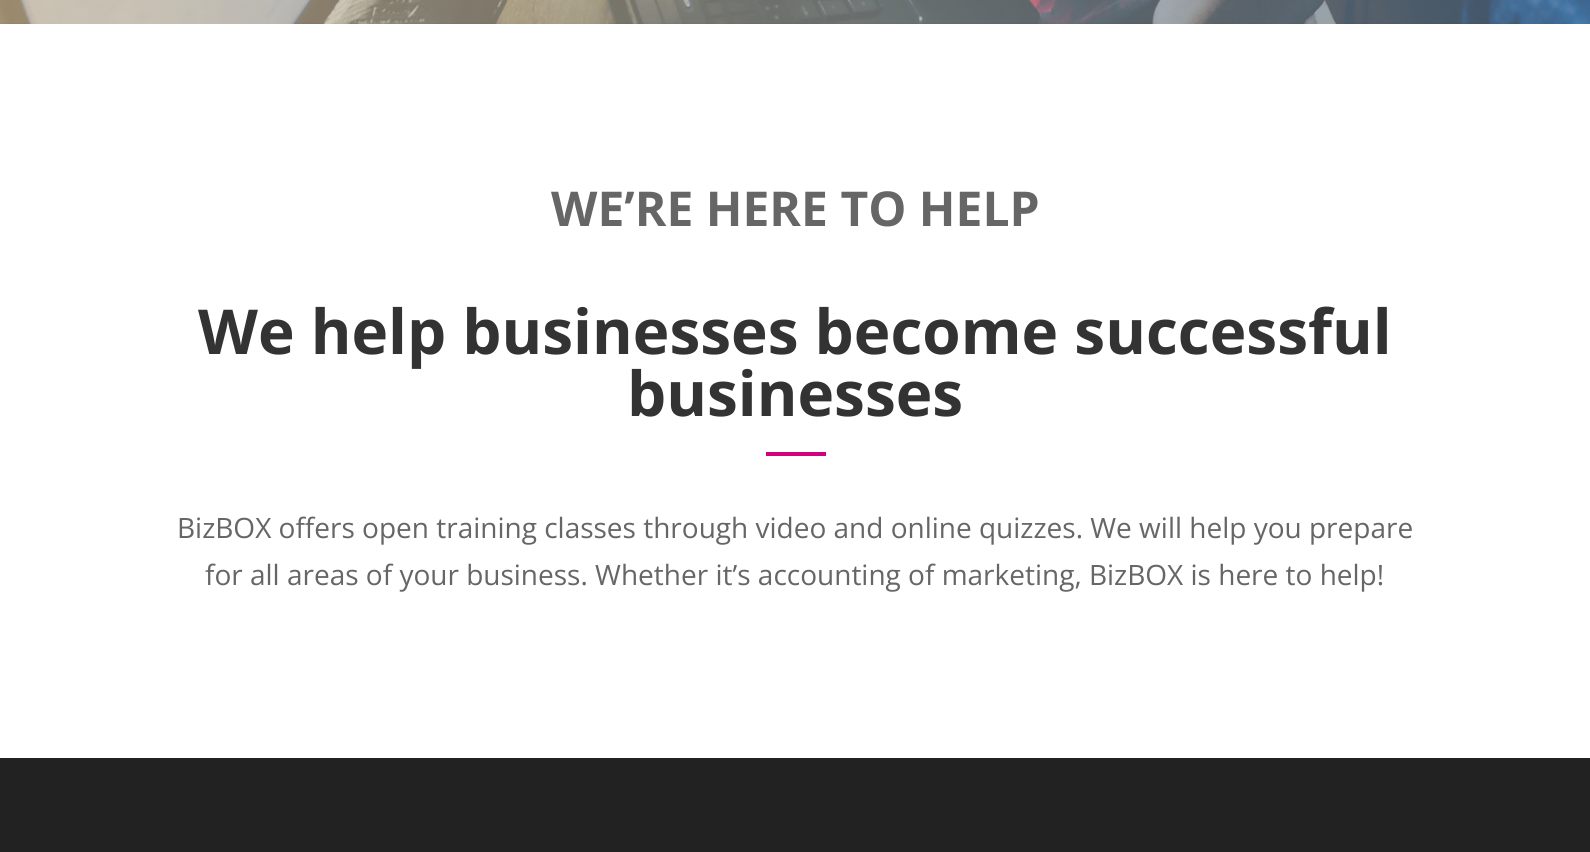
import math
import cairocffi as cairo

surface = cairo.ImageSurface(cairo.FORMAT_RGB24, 1590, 852)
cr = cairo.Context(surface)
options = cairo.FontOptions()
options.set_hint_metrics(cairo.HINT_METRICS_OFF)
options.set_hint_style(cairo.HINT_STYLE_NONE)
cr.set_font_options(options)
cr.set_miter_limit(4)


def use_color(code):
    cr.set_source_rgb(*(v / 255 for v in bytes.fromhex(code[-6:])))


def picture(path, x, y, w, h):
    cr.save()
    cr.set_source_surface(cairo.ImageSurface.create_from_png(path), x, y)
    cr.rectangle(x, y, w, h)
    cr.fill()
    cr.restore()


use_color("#ffffff")
cr.paint()
picture("img1.png", 0, 0, 1590, 24)
cr.select_font_face("Open Sans", cairo.FONT_SLANT_NORMAL, cairo.FONT_WEIGHT_BOLD)
cr.set_font_size(48)
use_color("#666666")
cr.move_to(551, 226)
cr.show_text("WE’RE HERE TO HELP")
cr.set_font_size(62)
use_color("#333333")
cr.move_to(198, 354)
cr.show_text("We help businesses become successful")
cr.move_to(627, 416)
cr.show_text("businesses")
use_color("#d2007f")
cr.rectangle(766, 452, 60, 4)
cr.fill()
cr.select_font_face("Open Sans")
cr.set_font_size(28)
use_color("#666666")
cr.move_to(177, 538)
cr.show_text("BizBOX offers open training classes through video and online quizzes. We will help you prepare")
cr.move_to(205, 585)
cr.show_text("for all areas of your business. Whether it’s accounting of marketing, BizBOX is here to help!")
use_color("#222222")
cr.rectangle(0, 758, 1590, 94)
cr.fill()
surface.write_to_png("result.png")
